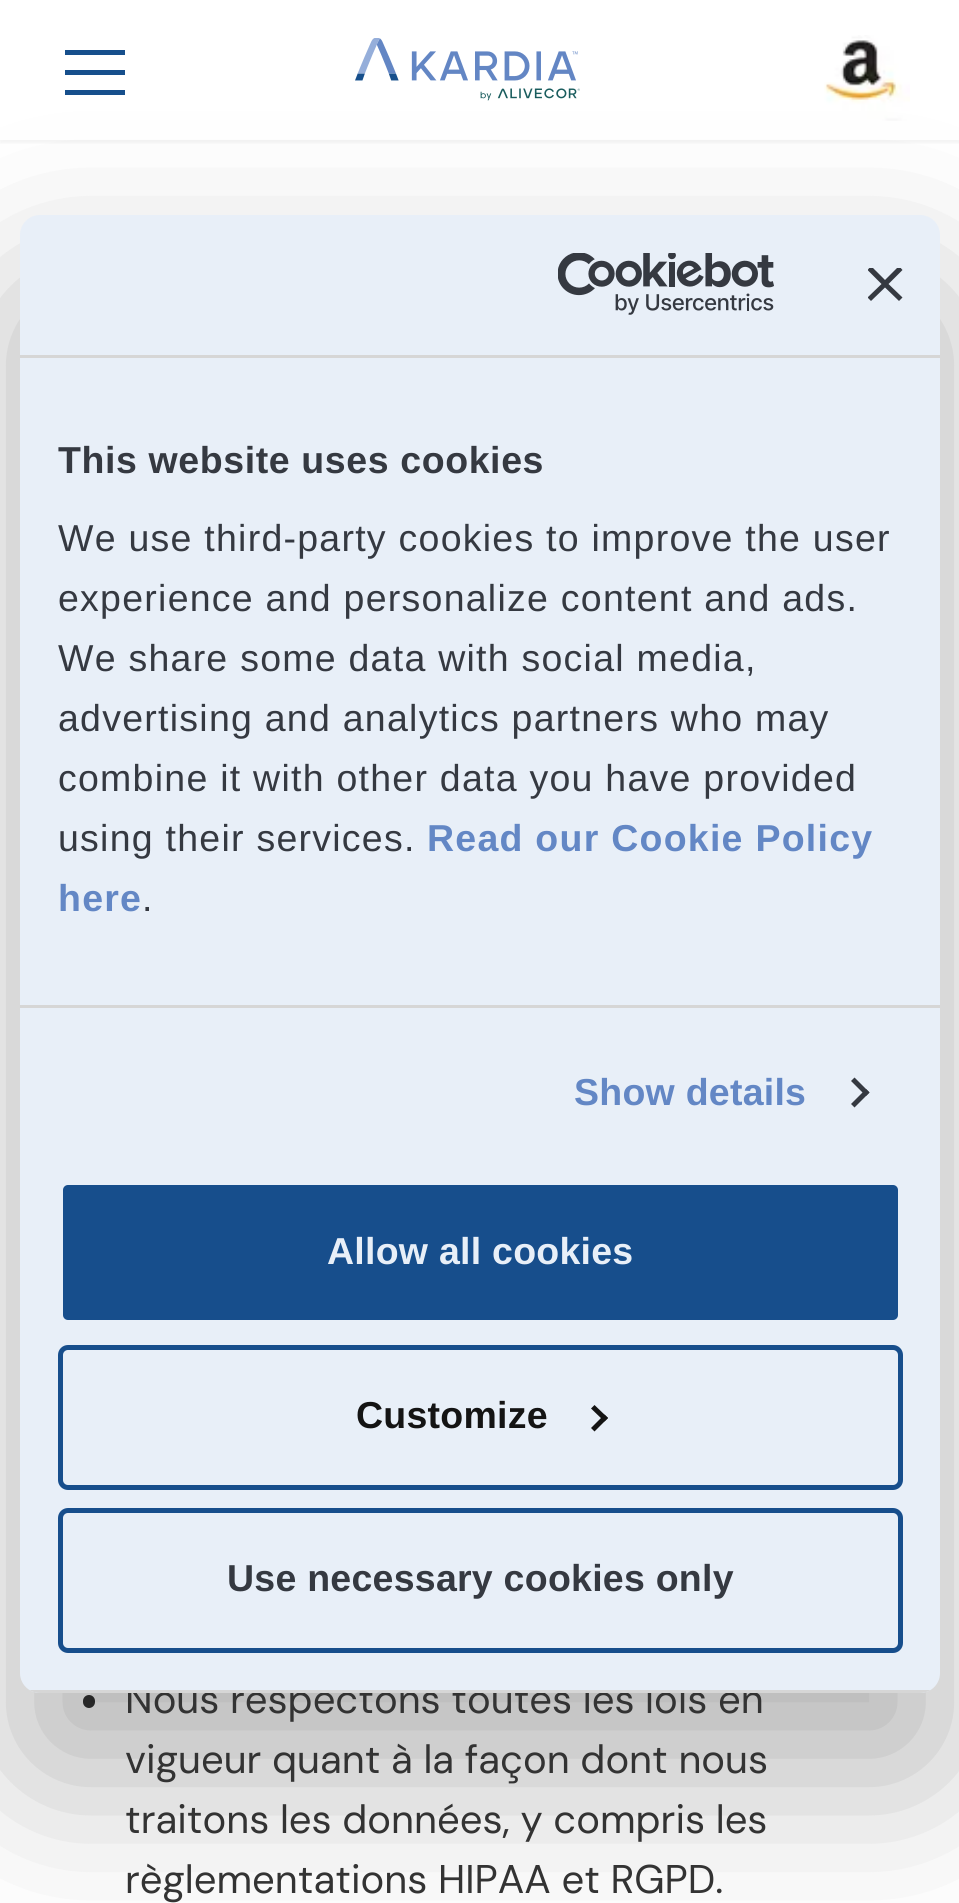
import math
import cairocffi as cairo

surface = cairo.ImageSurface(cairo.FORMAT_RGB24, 959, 1903)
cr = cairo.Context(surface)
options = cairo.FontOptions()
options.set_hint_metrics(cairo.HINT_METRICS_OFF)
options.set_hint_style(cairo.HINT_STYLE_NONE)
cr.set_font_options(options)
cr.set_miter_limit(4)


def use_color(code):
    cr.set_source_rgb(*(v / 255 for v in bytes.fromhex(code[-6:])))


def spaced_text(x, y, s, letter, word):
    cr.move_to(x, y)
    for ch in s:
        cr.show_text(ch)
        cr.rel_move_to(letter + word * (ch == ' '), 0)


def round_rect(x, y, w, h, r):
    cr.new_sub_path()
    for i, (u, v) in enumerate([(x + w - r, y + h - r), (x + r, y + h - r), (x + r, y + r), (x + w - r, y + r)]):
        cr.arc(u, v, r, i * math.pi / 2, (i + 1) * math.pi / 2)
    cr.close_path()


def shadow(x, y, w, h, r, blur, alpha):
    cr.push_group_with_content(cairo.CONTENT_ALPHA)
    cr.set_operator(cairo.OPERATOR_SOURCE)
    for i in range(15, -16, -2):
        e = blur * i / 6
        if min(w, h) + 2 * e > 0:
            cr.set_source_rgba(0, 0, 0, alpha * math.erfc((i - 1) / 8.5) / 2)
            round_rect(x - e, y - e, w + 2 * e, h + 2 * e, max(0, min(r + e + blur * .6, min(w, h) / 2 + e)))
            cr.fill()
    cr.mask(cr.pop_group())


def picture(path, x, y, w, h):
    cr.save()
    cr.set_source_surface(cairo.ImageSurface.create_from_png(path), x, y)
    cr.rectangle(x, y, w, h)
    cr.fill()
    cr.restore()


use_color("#ffffff")
cr.paint()
cr.save()
cr.rectangle(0, 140, 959, 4)
cr.clip()
use_color("#000000")
shadow(0, 3, 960, 140, 0, 2.5, 0.05)
cr.restore()
use_color("#164f8c")
cr.rectangle(65, 50, 60, 5)
cr.fill()
cr.rectangle(65, 70, 60, 5)
cr.fill()
cr.rectangle(65, 90, 60, 5)
cr.fill()
picture("img2.png", 355, 38, 225, 63)
picture("img3.png", 824, 35, 86, 86)
use_color("#333333")
round_rect(83, 1695, 12, 13, 6)
cr.fill()
use_color("#000000")
shadow(20, 295, 920, 1478, 20, 85, 0.3)
cr.select_font_face("DM Sans")
cr.set_font_size(40)
use_color("#333333")
cr.move_to(125, 1713)
cr.show_text("Nous respectons toutes les lois en")
use_color("#e8eff8")
round_rect(20, 215, 920, 1478, 20)
cr.fill()
use_color("#d6d6d6")
cr.rectangle(20, 355, 920, 3)
cr.fill()
picture("img1.png", 558, 253, 216, 62)
cr.save()
cr.rectangle(868, 268, 35, 35)
cr.clip()
use_color("#353941")
cr.new_path()
cr.move_to(902.5, 270)
cr.line_to(899, 266)
cr.line_to(885, 280)
cr.line_to(871, 266)
cr.line_to(867.5, 270)
cr.line_to(881.5, 284)
cr.line_to(867.5, 297.5)
cr.line_to(871, 301)
cr.line_to(885, 287.5)
cr.line_to(899, 301)
cr.line_to(902.5, 297.5)
cr.line_to(888.5, 284)
cr.close_path()
cr.fill()
cr.restore()
cr.rectangle(20, 1005, 920, 3)
cr.fill()
cr.select_font_face("Liberation Sans", cairo.FONT_SLANT_NORMAL, cairo.FONT_WEIGHT_BOLD)
cr.set_font_size(37.5)
use_color("#353941")
spaced_text(58, 473, "This website uses cookies", 0.6, 0)
cr.select_font_face("Liberation Sans")
spaced_text(58, 551, "We use third-party cookies to improve the user", 1.25, 0)
spaced_text(58, 611, "experience and personalize content and ads.", 1.25, 0)
spaced_text(58, 671, "We share some data with social media,", 1.25, 0)
spaced_text(58, 731, "advertising and analytics partners who may", 1.25, 0)
spaced_text(58, 791, "combine it with other data you have provided", 1.25, 0)
spaced_text(58, 851, "using their services.", 1.25, 0)
cr.select_font_face("Liberation Sans", cairo.FONT_SLANT_NORMAL, cairo.FONT_WEIGHT_BOLD)
use_color("#6387c5")
spaced_text(427, 851, "Read our Cookie Policy", 1.25, 0)
spaced_text(58, 911, "here", 1.25, 0)
cr.select_font_face("Liberation Sans")
use_color("#353941")
spaced_text(142, 911, ".", 1.25, 0)
cr.select_font_face("Liberation Sans", cairo.FONT_SLANT_NORMAL, cairo.FONT_WEIGHT_BOLD)
use_color("#6387c5")
spaced_text(574, 1105, "Show details", 0.25, 0)
use_color("#353941")
cr.new_path()
cr.move_to(854.5, 1077.5)
cr.line_to(869.5, 1092.5)
cr.line_to(866, 1096)
cr.line_to(851, 1081)
cr.close_path()
cr.fill()
cr.new_path()
cr.move_to(866, 1089)
cr.line_to(869.5, 1092.5)
cr.line_to(854.5, 1107.5)
cr.line_to(851, 1104)
cr.close_path()
cr.fill()
cr.save()
round_rect(20, 215, 920, 1478, 20)
cr.clip()
use_color("#d6d6d6")
cr.rectangle(29, 1690, 902, 3)
cr.fill()
cr.restore()
use_color("#174e8c")
round_rect(60.5, 1182.5, 840, 140, 7.5)
cr.fill_preserve()
use_color("#e8eff8")
cr.set_line_width(5)
cr.stroke()
spaced_text(327, 1264, "Allow all cookies", 0.25, 0)
round_rect(60.5, 1347.5, 840, 140, 7.5)
use_color("#174e8c")
cr.stroke()
use_color("#141414")
spaced_text(356, 1428, "Customize", 0.25, 0)
cr.new_path()
cr.move_to(594.5, 1405)
cr.line_to(608, 1418)
cr.line_to(604.5, 1421.5)
cr.line_to(591, 1408.5)
cr.close_path()
cr.fill()
cr.new_path()
cr.move_to(604.5, 1414.5)
cr.line_to(608, 1418)
cr.line_to(594.5, 1431.5)
cr.line_to(591, 1428)
cr.close_path()
cr.fill()
round_rect(60.5, 1510.5, 840, 140, 7.5)
use_color("#174e8c")
cr.stroke()
use_color("#353941")
spaced_text(227, 1591, "Use necessary cookies only", 0.25, 0)
cr.select_font_face("DM Sans")
cr.set_font_size(40)
use_color("#333333")
cr.move_to(125, 1773)
cr.show_text("vigueur quant à la façon dont nous")
cr.move_to(125, 1833)
cr.show_text("traitons les données, y compris les")
cr.move_to(125, 1893)
cr.show_text("règlementations HIPAA et RGPD.")
surface.write_to_png("result.png")
